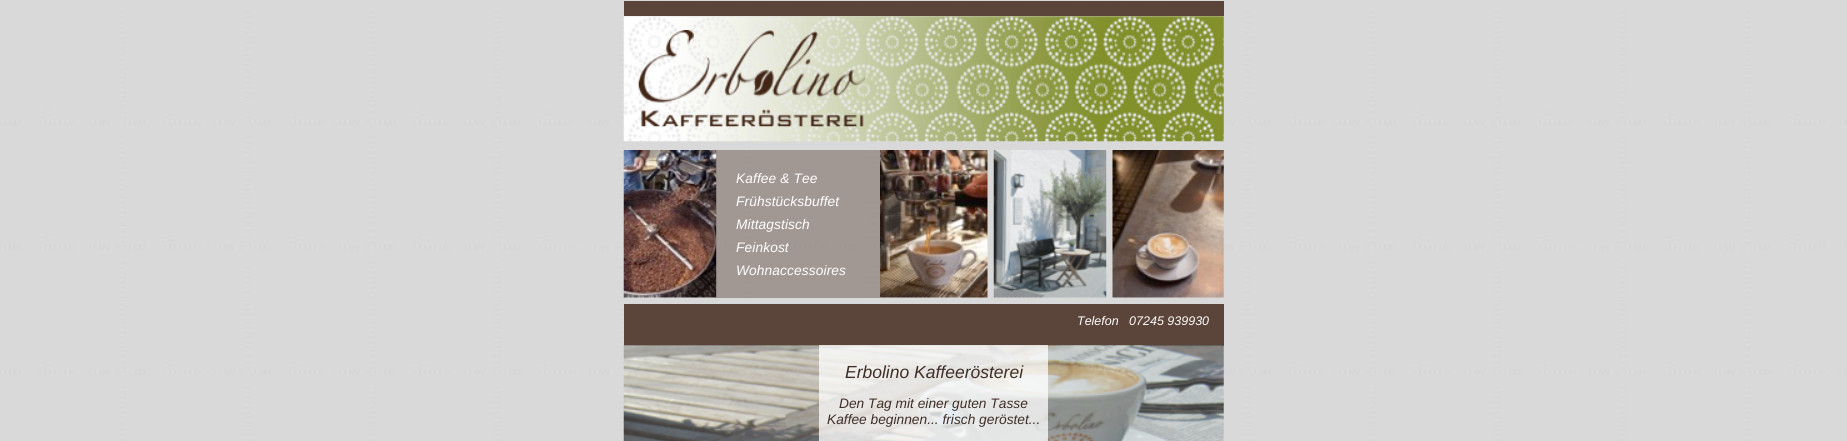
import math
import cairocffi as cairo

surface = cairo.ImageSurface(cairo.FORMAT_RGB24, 1847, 441)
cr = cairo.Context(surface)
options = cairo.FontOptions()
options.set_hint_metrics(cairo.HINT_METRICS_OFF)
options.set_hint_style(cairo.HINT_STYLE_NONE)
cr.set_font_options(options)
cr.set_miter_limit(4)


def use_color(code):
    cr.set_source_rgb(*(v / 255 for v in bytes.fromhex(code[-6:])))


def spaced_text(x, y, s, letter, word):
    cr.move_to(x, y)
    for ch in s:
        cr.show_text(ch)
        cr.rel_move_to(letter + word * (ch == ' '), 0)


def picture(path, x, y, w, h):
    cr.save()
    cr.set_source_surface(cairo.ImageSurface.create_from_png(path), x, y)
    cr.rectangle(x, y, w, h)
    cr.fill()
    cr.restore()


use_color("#ffffff")
cr.paint()
picture("img1.png", 0, 0, 1847, 441)
use_color("#5b4439")
cr.rectangle(624, 1, 600, 15)
cr.fill()
picture("img2.png", 623, 16, 601, 126)
picture("img3.png", 638, 30, 227, 97)
picture("img4.png", 623, 150, 94, 148)
cr.set_source_rgba(0.357, 0.267, 0.224, 0.44)
cr.rectangle(716, 150, 164, 148)
cr.fill()
picture("img5.png", 880, 150, 108, 148)
picture("img6.png", 993, 150, 114, 148)
picture("img7.png", 1112, 150, 112, 148)
cr.select_font_face("Liberation Sans", cairo.FONT_SLANT_ITALIC)
cr.set_font_size(13.75)
use_color("#fffeff")
spaced_text(736, 183, "Kaffee & Tee", 0.1, 0)
spaced_text(736, 206, "Frühstücksbuffet", 0.1, 0)
spaced_text(736, 229, "Mittagstisch", 0.1, 0)
spaced_text(736, 252, "Feinkost", 0.1, 0)
spaced_text(736, 275, "Wohnaccessoires", 0.1, 0)
use_color("#5b4439")
cr.rectangle(624, 304, 600, 42)
cr.fill()
cr.set_font_size(12.5)
use_color("#fffeff")
cr.move_to(1077, 325)
cr.show_text("Telefon   07245 939930")
picture("img8.png", 623, 345, 601, 96)
cr.set_source_rgba(1, 0.996, 1, 0.75)
cr.rectangle(819, 345, 229, 96)
cr.fill()
cr.set_font_size(17.5)
use_color("#3f2e27")
cr.move_to(845, 378)
cr.show_text("Erbolino Kaffeerösterei")
cr.set_font_size(13.75)
cr.move_to(839, 408)
cr.show_text("Den Tag mit einer guten Tasse")
cr.move_to(827, 424)
cr.show_text("Kaffee beginnen... frisch geröstet...")
surface.write_to_png("result.png")
